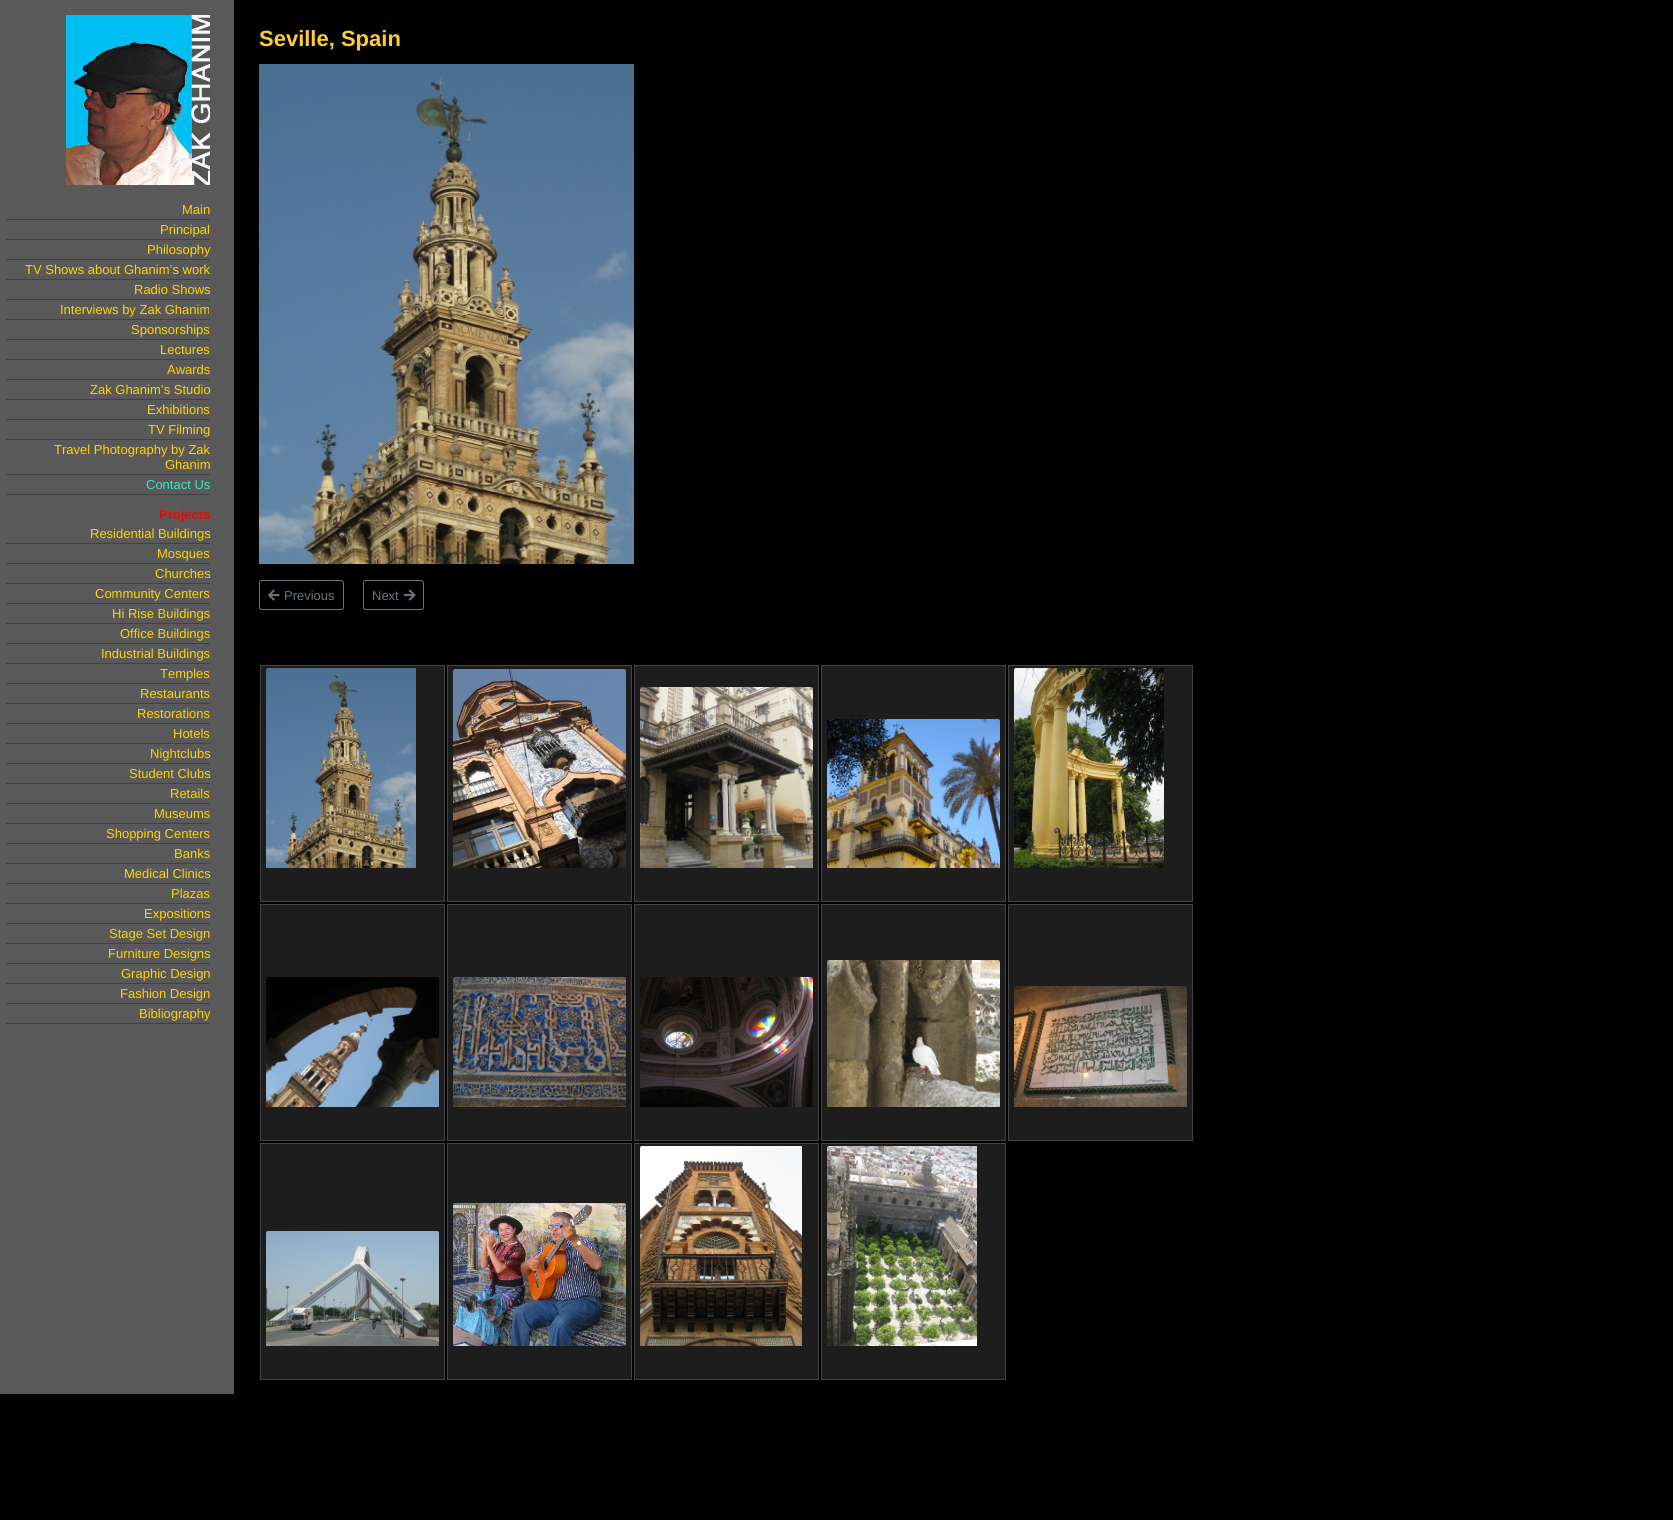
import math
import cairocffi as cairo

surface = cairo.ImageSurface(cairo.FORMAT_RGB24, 1673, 1520)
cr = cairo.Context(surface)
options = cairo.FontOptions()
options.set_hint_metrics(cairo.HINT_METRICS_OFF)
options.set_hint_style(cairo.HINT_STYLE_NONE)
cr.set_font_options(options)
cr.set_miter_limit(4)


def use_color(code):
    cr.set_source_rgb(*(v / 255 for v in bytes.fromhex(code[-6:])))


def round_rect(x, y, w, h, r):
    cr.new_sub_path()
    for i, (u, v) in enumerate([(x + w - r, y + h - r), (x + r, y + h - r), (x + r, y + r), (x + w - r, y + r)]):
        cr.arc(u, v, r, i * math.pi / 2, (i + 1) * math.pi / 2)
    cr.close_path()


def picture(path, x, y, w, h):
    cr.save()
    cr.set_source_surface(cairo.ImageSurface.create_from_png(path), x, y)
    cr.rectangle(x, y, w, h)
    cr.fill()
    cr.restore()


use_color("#000000")
cr.paint()
use_color("#595959")
cr.rectangle(0, 0, 234, 1394)
cr.fill()
picture("img1.png", 66, 15, 144, 170)
use_color("#414141")
cr.rectangle(6, 219, 204, 1)
cr.fill()
cr.select_font_face("Liberation Sans")
cr.set_font_size(13)
use_color("#ffd303")
cr.move_to(182, 214)
cr.show_text("Main")
use_color("#414141")
cr.rectangle(6, 239, 204, 1)
cr.fill()
use_color("#ffd303")
cr.move_to(160, 234)
cr.show_text("Principal")
use_color("#414141")
cr.rectangle(6, 259, 204, 1)
cr.fill()
use_color("#ffd303")
cr.move_to(147, 254)
cr.show_text("Philosophy")
use_color("#414141")
cr.rectangle(6, 279, 204, 1)
cr.fill()
use_color("#ffd303")
cr.move_to(25, 274)
cr.show_text("TV Shows about Ghanim’s work")
use_color("#414141")
cr.rectangle(6, 299, 204, 1)
cr.fill()
use_color("#ffd303")
cr.move_to(134, 294)
cr.show_text("Radio Shows")
use_color("#414141")
cr.rectangle(6, 319, 204, 1)
cr.fill()
use_color("#ffd303")
cr.move_to(60, 314)
cr.show_text("Interviews by Zak Ghanim")
use_color("#414141")
cr.rectangle(6, 339, 204, 1)
cr.fill()
use_color("#ffd303")
cr.move_to(131, 334)
cr.show_text("Sponsorships")
use_color("#414141")
cr.rectangle(6, 359, 204, 1)
cr.fill()
use_color("#ffd303")
cr.move_to(160, 354)
cr.show_text("Lectures")
use_color("#414141")
cr.rectangle(6, 379, 204, 1)
cr.fill()
use_color("#ffd303")
cr.move_to(167, 374)
cr.show_text("Awards")
use_color("#414141")
cr.rectangle(6, 399, 204, 1)
cr.fill()
use_color("#ffd303")
cr.move_to(90, 394)
cr.show_text("Zak Ghanim’s Studio")
use_color("#414141")
cr.rectangle(6, 419, 204, 1)
cr.fill()
use_color("#ffd303")
cr.move_to(147, 414)
cr.show_text("Exhibitions")
use_color("#414141")
cr.rectangle(6, 439, 204, 1)
cr.fill()
use_color("#ffd303")
cr.move_to(148, 434)
cr.show_text("TV Filming")
use_color("#414141")
cr.rectangle(6, 474, 204, 1)
cr.fill()
use_color("#ffd303")
cr.move_to(54, 454)
cr.show_text("Travel Photography by Zak")
cr.move_to(165, 469)
cr.show_text("Ghanim")
use_color("#414141")
cr.rectangle(6, 494, 204, 1)
cr.fill()
use_color("#40e0d0")
cr.move_to(146, 489)
cr.show_text("Contact Us")
cr.select_font_face("Liberation Sans", cairo.FONT_SLANT_NORMAL, cairo.FONT_WEIGHT_BOLD)
use_color("#ff0000")
cr.move_to(159, 519)
cr.show_text("Projects")
use_color("#414141")
cr.rectangle(6, 543, 204, 1)
cr.fill()
cr.select_font_face("Liberation Sans")
use_color("#ffd303")
cr.move_to(90, 538)
cr.show_text("Residential Buildings")
use_color("#414141")
cr.rectangle(6, 563, 204, 1)
cr.fill()
use_color("#ffd303")
cr.move_to(157, 558)
cr.show_text("Mosques")
use_color("#414141")
cr.rectangle(6, 583, 204, 1)
cr.fill()
use_color("#ffd303")
cr.move_to(155, 578)
cr.show_text("Churches")
use_color("#414141")
cr.rectangle(6, 603, 204, 1)
cr.fill()
use_color("#ffd303")
cr.move_to(95, 598)
cr.show_text("Community Centers")
use_color("#414141")
cr.rectangle(6, 623, 204, 1)
cr.fill()
use_color("#ffd303")
cr.move_to(112, 618)
cr.show_text("Hi Rise Buildings")
use_color("#414141")
cr.rectangle(6, 643, 204, 1)
cr.fill()
use_color("#ffd303")
cr.move_to(120, 638)
cr.show_text("Office Buildings")
use_color("#414141")
cr.rectangle(6, 663, 204, 1)
cr.fill()
use_color("#ffd303")
cr.move_to(101, 658)
cr.show_text("Industrial Buildings")
use_color("#414141")
cr.rectangle(6, 683, 204, 1)
cr.fill()
use_color("#ffd303")
cr.move_to(160, 678)
cr.show_text("Temples")
use_color("#414141")
cr.rectangle(6, 703, 204, 1)
cr.fill()
use_color("#ffd303")
cr.move_to(140, 698)
cr.show_text("Restaurants")
use_color("#414141")
cr.rectangle(6, 723, 204, 1)
cr.fill()
use_color("#ffd303")
cr.move_to(137, 718)
cr.show_text("Restorations")
use_color("#414141")
cr.rectangle(6, 743, 204, 1)
cr.fill()
use_color("#ffd303")
cr.move_to(173, 738)
cr.show_text("Hotels")
use_color("#414141")
cr.rectangle(6, 763, 204, 1)
cr.fill()
use_color("#ffd303")
cr.move_to(150, 758)
cr.show_text("Nightclubs")
use_color("#414141")
cr.rectangle(6, 783, 204, 1)
cr.fill()
use_color("#ffd303")
cr.move_to(129, 778)
cr.show_text("Student Clubs")
use_color("#414141")
cr.rectangle(6, 803, 204, 1)
cr.fill()
use_color("#ffd303")
cr.move_to(170, 798)
cr.show_text("Retails")
use_color("#414141")
cr.rectangle(6, 823, 204, 1)
cr.fill()
use_color("#ffd303")
cr.move_to(154, 818)
cr.show_text("Museums")
use_color("#414141")
cr.rectangle(6, 843, 204, 1)
cr.fill()
use_color("#ffd303")
cr.move_to(106, 838)
cr.show_text("Shopping Centers")
use_color("#414141")
cr.rectangle(6, 863, 204, 1)
cr.fill()
use_color("#ffd303")
cr.move_to(174, 858)
cr.show_text("Banks")
use_color("#414141")
cr.rectangle(6, 883, 204, 1)
cr.fill()
use_color("#ffd303")
cr.move_to(124, 878)
cr.show_text("Medical Clinics")
use_color("#414141")
cr.rectangle(6, 903, 204, 1)
cr.fill()
use_color("#ffd303")
cr.move_to(171, 898)
cr.show_text("Plazas")
use_color("#414141")
cr.rectangle(6, 923, 204, 1)
cr.fill()
use_color("#ffd303")
cr.move_to(144, 918)
cr.show_text("Expositions")
use_color("#414141")
cr.rectangle(6, 943, 204, 1)
cr.fill()
use_color("#ffd303")
cr.move_to(109, 938)
cr.show_text("Stage Set Design")
use_color("#414141")
cr.rectangle(6, 963, 204, 1)
cr.fill()
use_color("#ffd303")
cr.move_to(108, 958)
cr.show_text("Furniture Designs")
use_color("#414141")
cr.rectangle(6, 983, 204, 1)
cr.fill()
use_color("#ffd303")
cr.move_to(121, 978)
cr.show_text("Graphic Design")
use_color("#414141")
cr.rectangle(6, 1003, 204, 1)
cr.fill()
use_color("#ffd303")
cr.move_to(120, 998)
cr.show_text("Fashion Design")
use_color("#414141")
cr.rectangle(6, 1023, 204, 1)
cr.fill()
use_color("#ffd303")
cr.move_to(139, 1018)
cr.show_text("Bibliography")
cr.select_font_face("Liberation Sans", cairo.FONT_SLANT_NORMAL, cairo.FONT_WEIGHT_BOLD)
cr.set_font_size(22)
use_color("#ffcc33")
cr.move_to(259, 46)
cr.show_text("Seville, Spain")
picture("img2.png", 259, 64, 375, 500)
round_rect(259.5, 580.5, 84, 29, 2.5)
use_color("#6c757d")
cr.set_line_width(1)
cr.stroke()
picture("img3.png", 268, 589, 12, 12)
cr.select_font_face("Liberation Sans")
cr.set_font_size(13)
cr.move_to(284, 600)
cr.show_text("Previous")
round_rect(363.5, 580.5, 60, 29, 2.5)
cr.stroke()
cr.move_to(372, 600)
cr.show_text("Next")
picture("img4.png", 404, 589, 12, 12)
use_color("#1d1d1d")
cr.rectangle(260.5, 665.5, 184, 236)
cr.fill_preserve()
use_color("#454545")
cr.stroke()
picture("img5.png", 266, 668, 150, 200)
use_color("#1d1d1d")
cr.rectangle(447.5, 665.5, 184, 236)
cr.fill_preserve()
use_color("#454545")
cr.stroke()
picture("img6.png", 453, 669, 173, 199)
use_color("#1d1d1d")
cr.rectangle(634.5, 665.5, 184, 236)
cr.fill_preserve()
use_color("#454545")
cr.stroke()
picture("img7.png", 640, 687, 173, 181)
use_color("#1d1d1d")
cr.rectangle(821.5, 665.5, 184, 236)
cr.fill_preserve()
use_color("#454545")
cr.stroke()
picture("img8.png", 827, 719, 173, 149)
use_color("#1d1d1d")
cr.rectangle(1008.5, 665.5, 184, 236)
cr.fill_preserve()
use_color("#454545")
cr.stroke()
picture("img9.png", 1014, 668, 150, 200)
use_color("#1d1d1d")
cr.rectangle(260.5, 904.5, 184, 236)
cr.fill_preserve()
use_color("#454545")
cr.stroke()
picture("img10.png", 266, 977, 173, 130)
use_color("#1d1d1d")
cr.rectangle(447.5, 904.5, 184, 236)
cr.fill_preserve()
use_color("#454545")
cr.stroke()
picture("img11.png", 453, 977, 173, 130)
use_color("#1d1d1d")
cr.rectangle(634.5, 904.5, 184, 236)
cr.fill_preserve()
use_color("#454545")
cr.stroke()
picture("img12.png", 640, 977, 173, 130)
use_color("#1d1d1d")
cr.rectangle(821.5, 904.5, 184, 236)
cr.fill_preserve()
use_color("#454545")
cr.stroke()
picture("img13.png", 827, 960, 173, 147)
use_color("#1d1d1d")
cr.rectangle(1008.5, 904.5, 184, 236)
cr.fill_preserve()
use_color("#454545")
cr.stroke()
picture("img14.png", 1014, 986, 173, 121)
use_color("#1d1d1d")
cr.rectangle(260.5, 1143.5, 184, 236)
cr.fill_preserve()
use_color("#454545")
cr.stroke()
picture("img15.png", 266, 1231, 173, 115)
use_color("#1d1d1d")
cr.rectangle(447.5, 1143.5, 184, 236)
cr.fill_preserve()
use_color("#454545")
cr.stroke()
picture("img16.png", 453, 1203, 173, 143)
use_color("#1d1d1d")
cr.rectangle(634.5, 1143.5, 184, 236)
cr.fill_preserve()
use_color("#454545")
cr.stroke()
picture("img17.png", 640, 1146, 162, 200)
use_color("#1d1d1d")
cr.rectangle(821.5, 1143.5, 184, 236)
cr.fill_preserve()
use_color("#454545")
cr.stroke()
picture("img18.png", 827, 1146, 150, 200)
surface.write_to_png("result.png")
